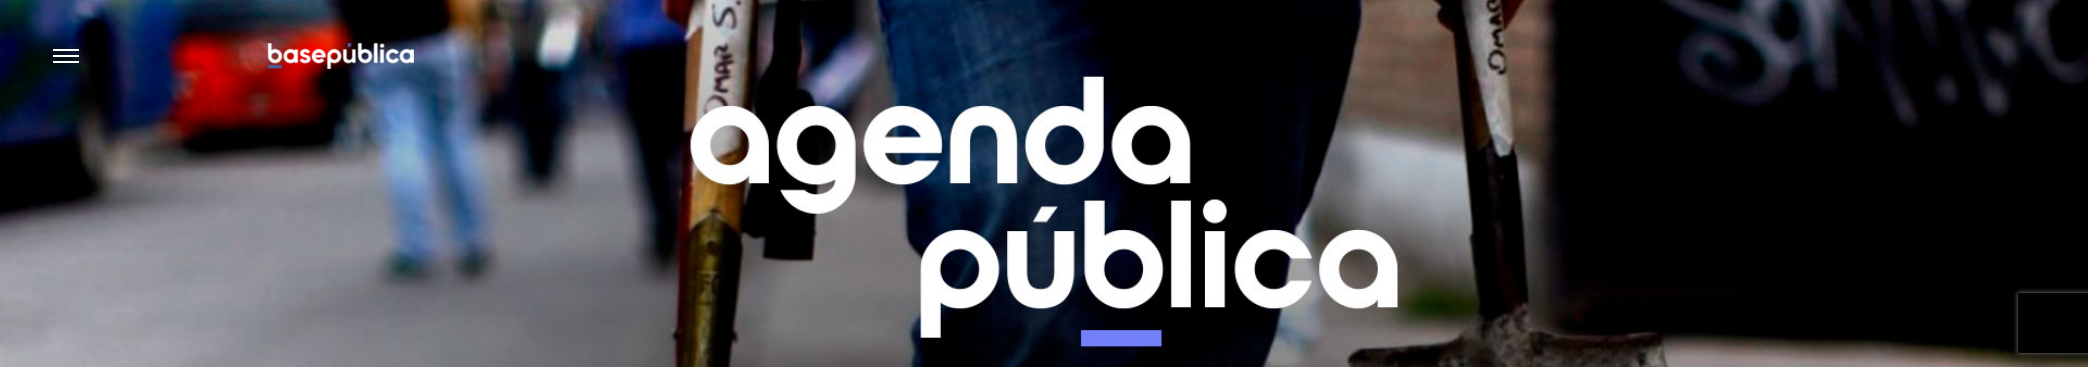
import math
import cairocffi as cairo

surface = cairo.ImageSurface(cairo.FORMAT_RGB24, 2088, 367)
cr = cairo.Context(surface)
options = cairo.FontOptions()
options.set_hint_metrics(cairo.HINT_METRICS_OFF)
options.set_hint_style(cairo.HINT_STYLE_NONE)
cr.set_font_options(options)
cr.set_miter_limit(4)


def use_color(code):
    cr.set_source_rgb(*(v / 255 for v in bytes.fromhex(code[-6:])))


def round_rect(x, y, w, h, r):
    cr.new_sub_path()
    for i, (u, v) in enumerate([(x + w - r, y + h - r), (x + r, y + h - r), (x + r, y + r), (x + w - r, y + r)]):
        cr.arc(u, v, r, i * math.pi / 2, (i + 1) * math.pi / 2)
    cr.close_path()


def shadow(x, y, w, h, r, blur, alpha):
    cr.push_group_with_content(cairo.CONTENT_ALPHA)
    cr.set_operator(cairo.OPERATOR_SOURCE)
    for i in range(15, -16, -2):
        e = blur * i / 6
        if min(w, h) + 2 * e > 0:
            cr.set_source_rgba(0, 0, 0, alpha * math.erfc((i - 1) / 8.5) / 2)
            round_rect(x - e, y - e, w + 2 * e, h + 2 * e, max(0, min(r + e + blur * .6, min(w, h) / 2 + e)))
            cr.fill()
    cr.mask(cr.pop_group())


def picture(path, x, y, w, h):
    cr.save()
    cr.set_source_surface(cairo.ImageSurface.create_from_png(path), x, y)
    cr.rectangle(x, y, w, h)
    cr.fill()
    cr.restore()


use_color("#ffffff")
cr.paint()
picture("img1.png", 0, 0, 2088, 367)
use_color("#ffffff")
cr.rectangle(53, 49, 26, 2)
cr.fill()
cr.rectangle(53, 55, 26, 2)
cr.fill()
cr.rectangle(53, 61, 26, 2)
cr.fill()
picture("img2.png", 267, 43, 147, 26)
cr.save()
cr.set_fill_rule(cairo.FILL_RULE_EVEN_ODD)
cr.new_path()
cr.move_to(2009, 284)
cr.line_to(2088, 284)
cr.line_to(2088, 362)
cr.line_to(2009, 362)
cr.close_path()
cr.move_to(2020, 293)
cr.line_to(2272, 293)
cr.curve_to(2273, 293, 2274, 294, 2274, 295)
cr.line_to(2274, 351)
cr.curve_to(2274, 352, 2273, 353, 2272, 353)
cr.line_to(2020, 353)
cr.curve_to(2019, 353, 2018, 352, 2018, 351)
cr.line_to(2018, 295)
cr.curve_to(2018, 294, 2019, 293, 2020, 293)
cr.close_path()
cr.clip()
use_color("#808080")
shadow(2018, 293, 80, 60, 2, 2.5, 1)
cr.restore()
surface.write_to_png("result.png")
